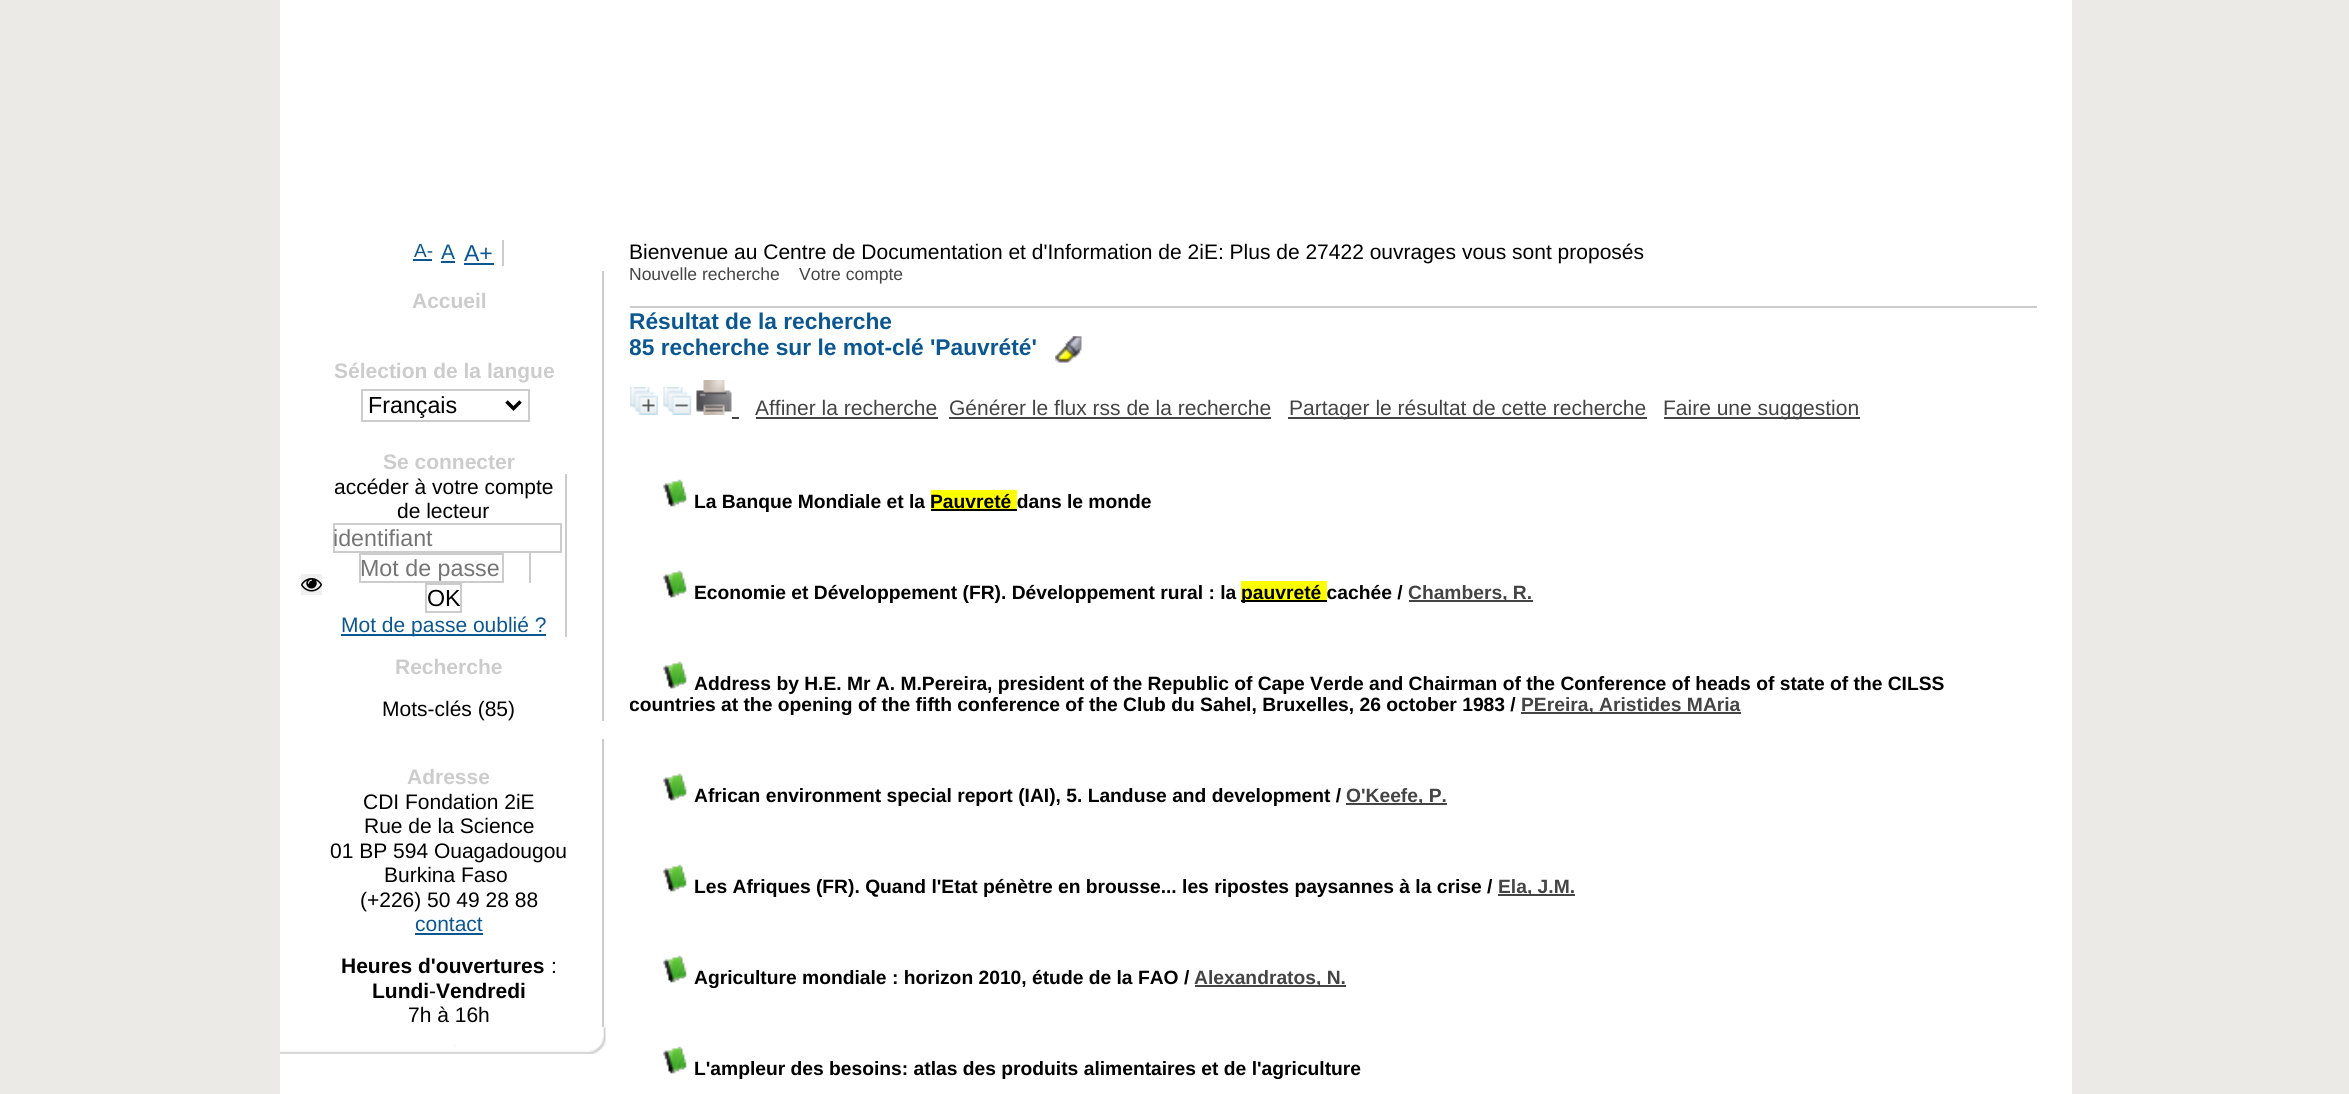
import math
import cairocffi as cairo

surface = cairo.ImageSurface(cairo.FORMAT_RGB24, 2349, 1094)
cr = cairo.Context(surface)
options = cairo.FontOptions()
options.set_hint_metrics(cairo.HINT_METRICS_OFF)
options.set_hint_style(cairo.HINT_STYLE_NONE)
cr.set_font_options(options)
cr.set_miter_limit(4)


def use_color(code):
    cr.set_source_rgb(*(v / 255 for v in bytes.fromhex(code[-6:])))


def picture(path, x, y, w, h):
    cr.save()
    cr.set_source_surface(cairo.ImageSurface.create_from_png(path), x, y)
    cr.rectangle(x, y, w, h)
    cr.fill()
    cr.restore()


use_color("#ebeae6")
cr.paint()
use_color("#ffffff")
cr.rectangle(280, 0, 1792, 1094)
cr.fill()
cr.select_font_face("Liberation Sans", cairo.FONT_SLANT_NORMAL, cairo.FONT_WEIGHT_BOLD)
cr.set_font_size(22.75)
use_color("#0b5791")
cr.move_to(629, 355)
cr.show_text("85 recherche sur le mot-clé 'Pauvrété'")
cr.set_font_size(19.25)
use_color("#000000")
cr.move_to(629, 711)
cr.show_text("countries at the opening of the fifth conference of the Club du Sahel, Bruxelles, 26 october 1983 /")
use_color("#ffffff")
cr.rectangle(629, 349, 1, 359)
cr.fill()
picture("img1.png", 280, 1027, 326, 27)
use_color("#cccccc")
cr.rectangle(502, 240, 2, 26)
cr.fill()
cr.select_font_face("Liberation Sans")
cr.set_font_size(19)
use_color("#0b5791")
cr.move_to(414, 257)
cr.show_text("A-")
cr.rectangle(413, 259, 19, 2)
cr.fill()
cr.set_font_size(21)
cr.move_to(441, 259)
cr.show_text("A")
cr.rectangle(441, 261, 14, 2)
cr.fill()
cr.set_font_size(23)
cr.move_to(464, 261)
cr.show_text("A+")
cr.rectangle(464, 263, 30, 2)
cr.fill()
use_color("#cccccc")
cr.rectangle(602, 271, 2, 450)
cr.fill()
cr.select_font_face("Liberation Sans", cairo.FONT_SLANT_NORMAL, cairo.FONT_WEIGHT_BOLD)
cr.set_font_size(21)
cr.move_to(412, 308)
cr.show_text("Accueil")
cr.move_to(334, 378)
cr.show_text("Sélection de la langue")
cr.rectangle(362, 390, 167, 31)
cr.stroke()
cr.new_path()
cr.move_to(506.5, 401.5)
cr.line_to(513.5, 408.5)
cr.line_to(520.5, 401.5)
use_color("#000000")
cr.set_line_width(3.5)
cr.stroke()
cr.select_font_face("Liberation Sans")
cr.set_font_size(23.25)
cr.move_to(368, 413)
cr.show_text("Français")
cr.select_font_face("Liberation Sans", cairo.FONT_SLANT_NORMAL, cairo.FONT_WEIGHT_BOLD)
cr.set_font_size(21)
use_color("#cccccc")
cr.move_to(383, 469)
cr.show_text("Se connecter")
cr.rectangle(565, 474, 2, 163)
cr.fill()
cr.select_font_face("Liberation Sans")
use_color("#000000")
cr.move_to(334, 494)
cr.show_text("accéder à votre compte")
cr.move_to(397, 518)
cr.show_text("de lecteur")
cr.rectangle(334, 524, 227, 28)
use_color("#cccccc")
cr.set_line_width(2)
cr.stroke()
cr.set_font_size(23.25)
use_color("#757575")
cr.move_to(333, 546)
cr.show_text("identifiant")
use_color("#cccccc")
cr.rectangle(529, 553, 2, 30)
cr.fill()
cr.rectangle(360, 554, 143, 28)
cr.stroke()
use_color("#757575")
cr.move_to(360, 576)
cr.show_text("Mot de passe")
use_color("#efefef")
cr.rectangle(301, 574, 21, 21)
cr.fill()
picture("img2.png", 301, 578, 21, 14)
cr.rectangle(426, 584, 35, 28)
use_color("#cccccc")
cr.stroke()
use_color("#000000")
cr.move_to(427, 606)
cr.show_text("OK")
use_color("#0b5791")
cr.rectangle(341, 634, 205, 2)
cr.fill()
cr.set_font_size(21)
cr.move_to(341, 632)
cr.show_text("Mot de passe oublié ?")
cr.select_font_face("Liberation Sans", cairo.FONT_SLANT_NORMAL, cairo.FONT_WEIGHT_BOLD)
use_color("#cccccc")
cr.move_to(395, 674)
cr.show_text("Recherche")
cr.select_font_face("Liberation Sans")
use_color("#000000")
cr.move_to(382, 716)
cr.show_text("Mots-clés (85)")
use_color("#cccccc")
cr.rectangle(602, 739, 2, 288)
cr.fill()
cr.select_font_face("Liberation Sans", cairo.FONT_SLANT_NORMAL, cairo.FONT_WEIGHT_BOLD)
cr.move_to(407, 784)
cr.show_text("Adresse")
cr.select_font_face("Liberation Sans")
use_color("#000000")
cr.move_to(363, 809)
cr.show_text("CDI Fondation 2iE")
cr.move_to(364, 833)
cr.show_text("Rue de la Science")
cr.move_to(330, 858)
cr.show_text("01 BP 594 Ouagadougou")
cr.move_to(384, 882)
cr.show_text("Burkina Faso")
cr.move_to(360, 907)
cr.show_text("(+226) 50 49 28 88")
use_color("#0b5791")
cr.move_to(415, 931)
cr.show_text("contact")
cr.rectangle(415, 933, 68, 2)
cr.fill()
cr.select_font_face("Liberation Sans", cairo.FONT_SLANT_NORMAL, cairo.FONT_WEIGHT_BOLD)
use_color("#000000")
cr.move_to(341, 973)
cr.show_text("Heures d'ouvertures")
cr.select_font_face("Liberation Sans")
cr.move_to(551, 973)
cr.show_text(":")
cr.select_font_face("Liberation Sans", cairo.FONT_SLANT_NORMAL, cairo.FONT_WEIGHT_BOLD)
cr.move_to(372, 998)
cr.show_text("Lundi")
cr.select_font_face("Liberation Sans")
cr.move_to(429, 998)
cr.show_text("-")
cr.select_font_face("Liberation Sans", cairo.FONT_SLANT_NORMAL, cairo.FONT_WEIGHT_BOLD)
cr.move_to(436, 998)
cr.show_text("Vendredi")
cr.select_font_face("Liberation Sans")
cr.move_to(408, 1022)
cr.show_text("7h à 16h")
cr.move_to(629, 259)
cr.show_text("Bienvenue au Centre de Documentation et d'Information de 2iE: Plus de 27422 ouvrages vous sont proposés")
use_color("#cccccc")
cr.rectangle(630, 306, 1407, 2)
cr.fill()
cr.set_font_size(17.5)
use_color("#444444")
cr.move_to(629, 280)
cr.show_text("Nouvelle recherche")
cr.move_to(799, 280)
cr.show_text("Votre compte")
cr.select_font_face("Liberation Sans", cairo.FONT_SLANT_NORMAL, cairo.FONT_WEIGHT_BOLD)
cr.set_font_size(22.75)
use_color("#0b5791")
cr.move_to(629, 329)
cr.show_text("Résultat de la recherche")
picture("img3.png", 1055, 336, 27, 27)
picture("img4.png", 630, 387, 28, 28)
picture("img5.png", 663, 387, 29, 28)
picture("img6.png", 696, 380, 36, 35)
use_color("#444444")
cr.rectangle(732, 417, 7, 2)
cr.fill()
cr.select_font_face("Liberation Sans")
cr.set_font_size(21)
cr.move_to(755, 415)
cr.show_text("Affiner la recherche")
cr.rectangle(756, 417, 182, 2)
cr.fill()
cr.move_to(949, 415)
cr.show_text("Générer le flux rss de la recherche")
cr.rectangle(949, 417, 322, 2)
cr.fill()
cr.rectangle(1288, 417, 359, 2)
cr.fill()
cr.move_to(1289, 415)
cr.show_text("Partager le résultat de cette recherche")
cr.rectangle(1664, 417, 196, 2)
cr.fill()
cr.move_to(1663, 415)
cr.show_text("Faire une suggestion")
picture("img7.png", 662, 479, 25, 28)
cr.select_font_face("Liberation Sans", cairo.FONT_SLANT_NORMAL, cairo.FONT_WEIGHT_BOLD)
cr.set_font_size(19.25)
use_color("#000000")
cr.move_to(694, 508)
cr.show_text("La Banque Mondiale et la")
use_color("#ffff00")
cr.rectangle(931, 490, 86, 19)
cr.fill()
use_color("#000000")
cr.move_to(930, 508)
cr.show_text("Pauvreté dans le monde")
cr.rectangle(931, 509, 86, 2)
cr.fill()
picture("img7.png", 662, 570, 25, 28)
cr.move_to(694, 599)
cr.show_text("Economie et Développement (FR). Développement rural : la")
use_color("#ffff00")
cr.rectangle(1241, 581, 86, 19)
cr.fill()
use_color("#000000")
cr.rectangle(1241, 600, 86, 2)
cr.fill()
cr.move_to(1241, 599)
cr.show_text("pauvreté cachée /")
use_color("#444444")
cr.rectangle(1409, 600, 124, 2)
cr.fill()
cr.move_to(1408, 599)
cr.show_text("Chambers, R.")
picture("img7.png", 662, 661, 25, 28)
use_color("#000000")
cr.move_to(694, 690)
cr.show_text("Address by H.E. Mr A. M.Pereira, president of the Republic of Cape Verde and Chairman of the Conference of heads of state of the CILSS")
use_color("#444444")
cr.rectangle(1521, 712, 220, 2)
cr.fill()
cr.move_to(1521, 711)
cr.show_text("PEreira, Aristides MAria")
picture("img7.png", 662, 773, 25, 28)
use_color("#000000")
cr.move_to(694, 802)
cr.show_text("African environment special report (IAI), 5. Landuse and development /")
use_color("#444444")
cr.rectangle(1346, 803, 101, 2)
cr.fill()
cr.move_to(1346, 802)
cr.show_text("O'Keefe, P.")
picture("img7.png", 662, 864, 25, 28)
use_color("#000000")
cr.move_to(694, 893)
cr.show_text("Les Afriques (FR). Quand l'Etat pénètre en brousse... les ripostes paysannes à la crise /")
use_color("#444444")
cr.rectangle(1498, 894, 77, 2)
cr.fill()
cr.move_to(1498, 893)
cr.show_text("Ela, J.M.")
picture("img7.png", 662, 955, 25, 28)
use_color("#000000")
cr.move_to(694, 984)
cr.show_text("Agriculture mondiale : horizon 2010, étude de la FAO /")
use_color("#444444")
cr.rectangle(1195, 985, 151, 2)
cr.fill()
cr.move_to(1194, 984)
cr.show_text("Alexandratos, N.")
picture("img7.png", 662, 1046, 25, 28)
use_color("#000000")
cr.move_to(694, 1075)
cr.show_text("L'ampleur des besoins: atlas des produits alimentaires et de l'agriculture")
surface.write_to_png("result.png")
